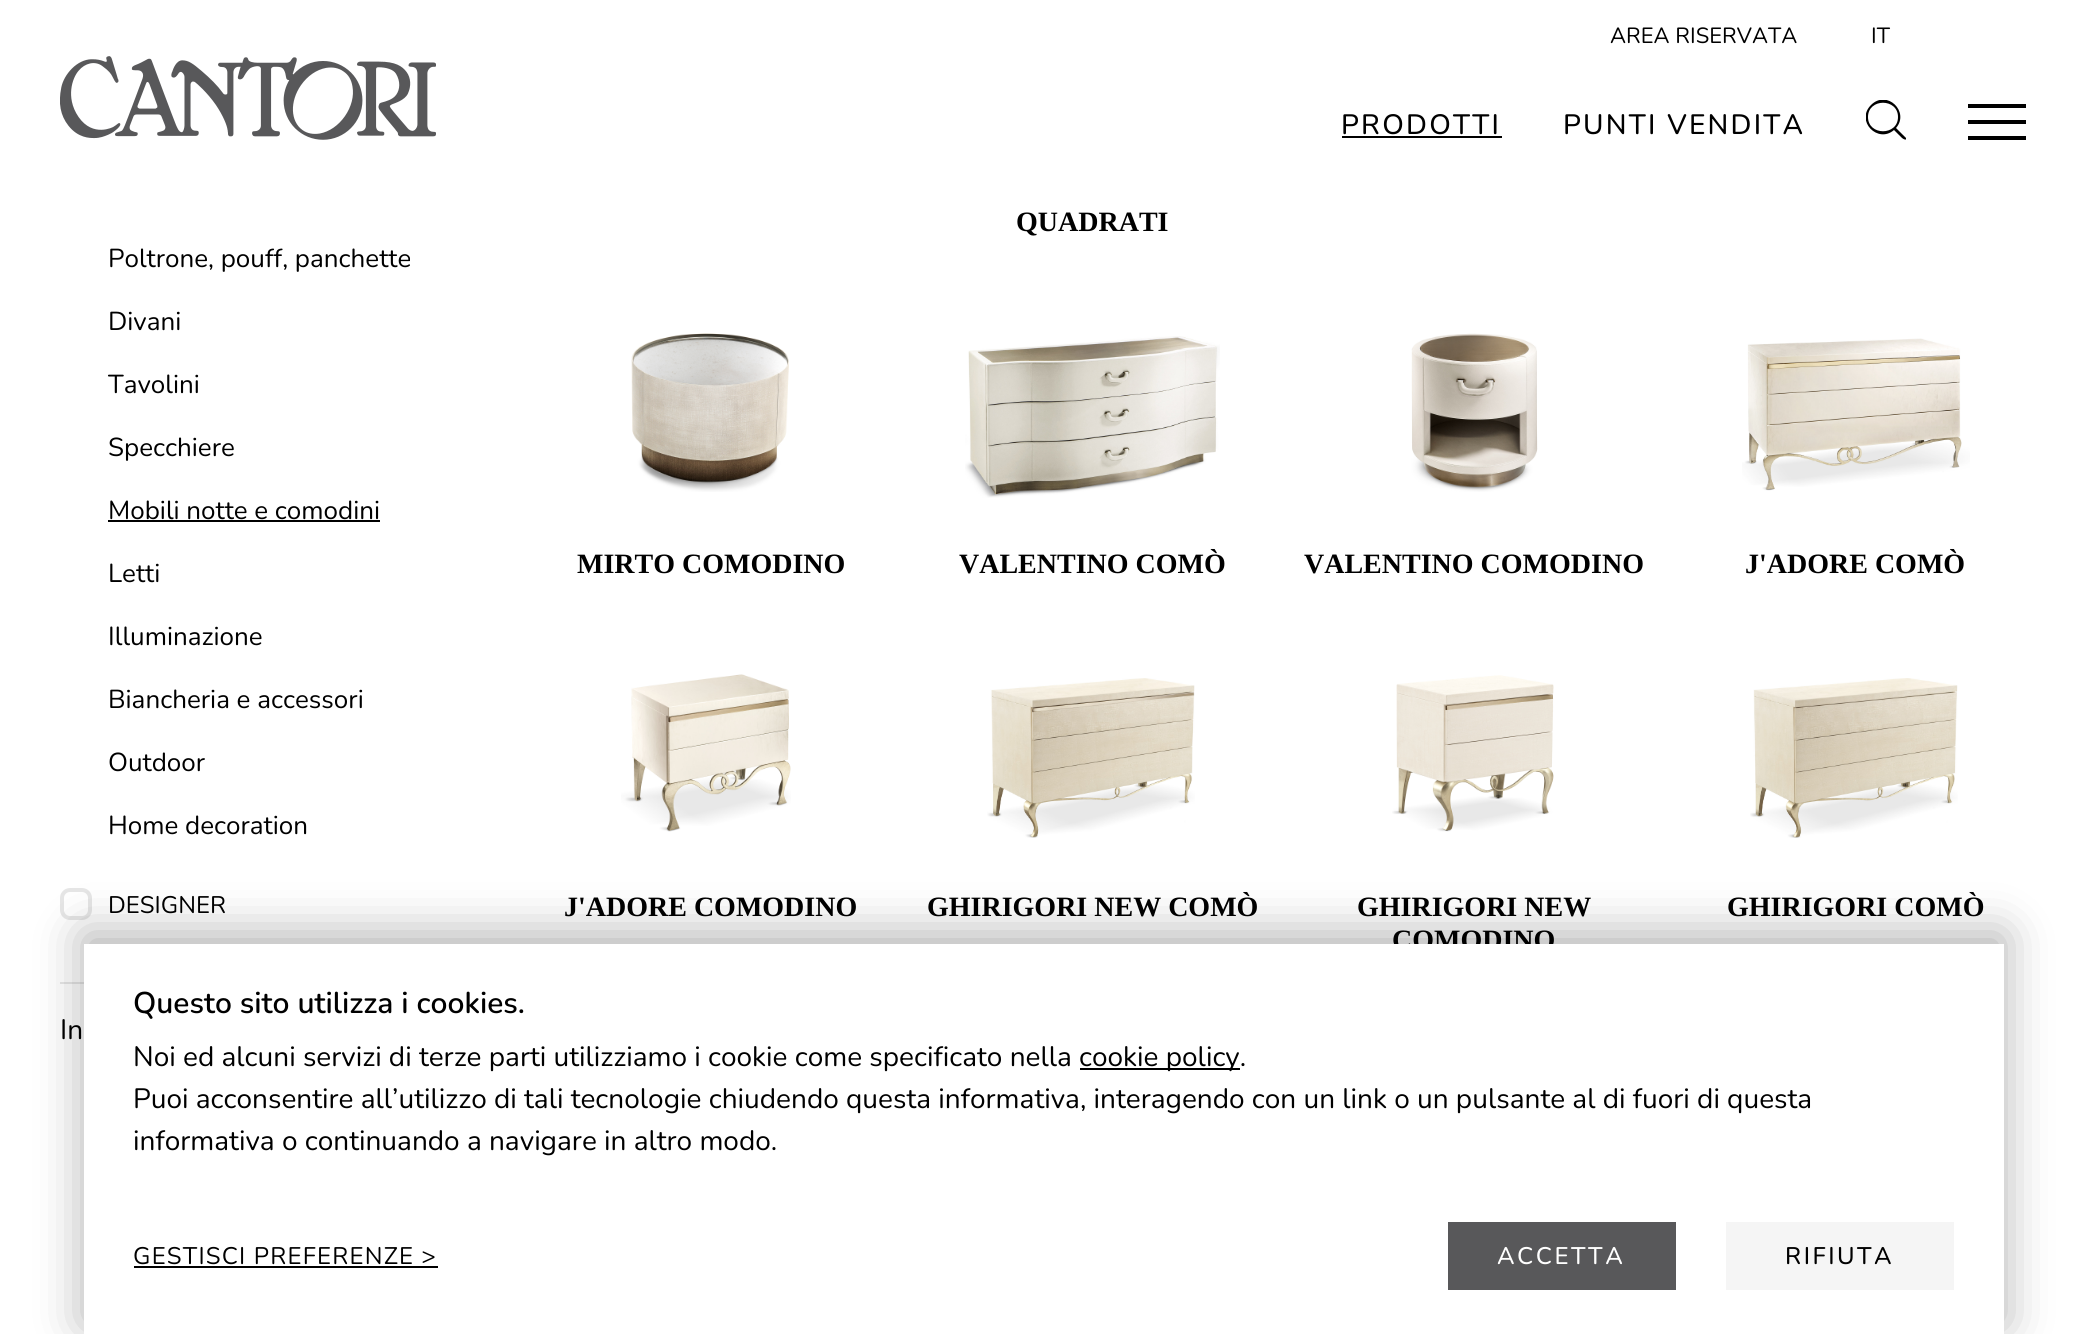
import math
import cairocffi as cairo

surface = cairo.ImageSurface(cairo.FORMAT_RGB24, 2085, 1334)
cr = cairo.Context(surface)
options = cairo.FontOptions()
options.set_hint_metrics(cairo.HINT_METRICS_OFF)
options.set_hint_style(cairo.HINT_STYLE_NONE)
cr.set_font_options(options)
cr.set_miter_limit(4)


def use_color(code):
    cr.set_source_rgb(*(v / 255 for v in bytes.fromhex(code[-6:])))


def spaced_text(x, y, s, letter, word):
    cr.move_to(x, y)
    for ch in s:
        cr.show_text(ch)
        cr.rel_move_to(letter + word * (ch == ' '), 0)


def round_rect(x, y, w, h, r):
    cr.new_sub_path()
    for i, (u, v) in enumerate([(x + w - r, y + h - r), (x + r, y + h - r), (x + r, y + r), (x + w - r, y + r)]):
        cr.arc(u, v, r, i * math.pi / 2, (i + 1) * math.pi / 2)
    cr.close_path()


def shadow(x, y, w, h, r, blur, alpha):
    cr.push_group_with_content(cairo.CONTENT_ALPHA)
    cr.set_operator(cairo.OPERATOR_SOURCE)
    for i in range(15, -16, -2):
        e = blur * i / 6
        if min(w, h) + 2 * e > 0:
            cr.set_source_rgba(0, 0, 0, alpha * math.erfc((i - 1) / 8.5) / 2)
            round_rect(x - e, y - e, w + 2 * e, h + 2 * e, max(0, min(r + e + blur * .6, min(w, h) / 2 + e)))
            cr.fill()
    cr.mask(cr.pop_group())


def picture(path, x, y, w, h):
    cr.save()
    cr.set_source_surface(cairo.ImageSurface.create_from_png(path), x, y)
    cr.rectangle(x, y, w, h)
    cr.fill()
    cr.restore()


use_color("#ffffff")
cr.paint()
picture("img1.png", 60, 56, 376, 84)
cr.select_font_face("Nunito")
cr.set_font_size(22)
use_color("#000000")
cr.move_to(1610, 43)
cr.show_text("AREA RISERVATA")
cr.move_to(1871, 43)
cr.show_text("IT")
cr.select_font_face("Nunito Medium")
cr.set_font_size(28)
spaced_text(1341, 134, "PRODOTTI", 2.25, 0)
cr.rectangle(1342, 136, 160, 2)
cr.fill()
spaced_text(1563, 134, "PUNTI VENDITA", 2.25, 0)
cr.save()
cr.rectangle(1866, 100, 40, 40)
cr.clip()
cr.new_path()
cr.move_to(1906, 138)
cr.line_to(1896, 128)
cr.curve_to(1910, 112, 1887, 89, 1871, 105)
cr.curve_to(1855, 121, 1878, 144, 1894, 130)
cr.line_to(1902, 138)
cr.curve_to(1906, 141, 1907, 139, 1906, 138)
cr.close_path()
cr.move_to(1868, 117)
cr.curve_to(1868, 98, 1898, 98, 1898, 117)
cr.curve_to(1898, 136, 1868, 136, 1868, 117)
cr.close_path()
cr.fill()
cr.restore()
cr.rectangle(1968, 104, 58, 4)
cr.fill()
cr.rectangle(1968, 120, 58, 4)
cr.fill()
cr.rectangle(1968, 136, 58, 4)
cr.fill()
cr.select_font_face("Nunito")
cr.set_font_size(26)
cr.move_to(108, 267)
cr.show_text("Poltrone, pouff, panchette")
cr.move_to(108, 330)
cr.show_text("Divani")
cr.move_to(108, 393)
cr.show_text("Tavolini")
cr.move_to(108, 456)
cr.show_text("Specchiere")
cr.move_to(108, 519)
cr.show_text("Mobili notte e comodini")
cr.rectangle(108, 520, 272, 2)
cr.fill()
cr.move_to(108, 582)
cr.show_text("Letti")
cr.move_to(108, 645)
cr.show_text("Illuminazione")
cr.move_to(108, 708)
cr.show_text("Biancheria e accessori")
cr.move_to(108, 771)
cr.show_text("Outdoor")
cr.move_to(108, 834)
cr.show_text("Home decoration")
round_rect(62, 890, 28, 28, 8)
use_color("#e6e6e6")
cr.set_line_width(4)
cr.stroke()
cr.set_font_size(24)
use_color("#000000")
cr.move_to(108, 913)
cr.show_text("DESIGNER")
use_color("#e6e6e6")
cr.rectangle(60, 982, 24, 2)
cr.fill()
cr.set_font_size(28)
use_color("#000000")
cr.move_to(60, 1039)
cr.show_text("In")
cr.select_font_face("Liberation Serif", cairo.FONT_SLANT_NORMAL, cairo.FONT_WEIGHT_BOLD)
cr.move_to(1016, 231)
cr.show_text("QUADRATI")
picture("img2.png", 631, 333, 158, 159)
cr.move_to(577, 573)
cr.show_text("MIRTO COMODINO")
picture("img3.png", 965, 336, 255, 162)
cr.move_to(959, 573)
cr.show_text("VALENTINO COMÒ")
picture("img4.png", 1411, 333, 127, 159)
cr.move_to(1304, 573)
cr.show_text("VALENTINO COMODINO")
picture("img5.png", 1742, 338, 228, 153)
cr.move_to(1745, 573)
cr.show_text("J'ADORE COMÒ")
picture("img6.png", 621, 674, 170, 158)
cr.move_to(564, 916)
cr.show_text("J'ADORE COMODINO")
picture("img7.png", 987, 678, 208, 160)
cr.move_to(927, 916)
cr.show_text("GHIRIGORI NEW COMÒ")
picture("img8.png", 1392, 675, 162, 157)
cr.move_to(1357, 916)
cr.show_text("GHIRIGORI NEW")
cr.move_to(1392, 949)
cr.show_text("COMODINO")
picture("img9.png", 1750, 678, 208, 160)
cr.move_to(1727, 916)
cr.show_text("GHIRIGORI COMÒ")
use_color("#000000")
shadow(84, 934, 1920, 390, 0, 24, 0.31)
use_color("#ffffff")
cr.rectangle(84, 944, 1920, 390)
cr.fill()
cr.select_font_face("Nunito SemiBold")
cr.set_font_size(30)
use_color("#000000")
cr.move_to(133, 1013)
cr.show_text("Questo sito utilizza i cookies.")
cr.select_font_face("Nunito")
cr.set_font_size(28)
cr.move_to(133, 1066)
cr.show_text("Noi ed alcuni servizi di terze parti utilizziamo i cookie come specificato nella")
cr.rectangle(1080, 1068, 160, 2)
cr.fill()
cr.move_to(1079, 1066)
cr.show_text("cookie policy.")
cr.move_to(133, 1108)
cr.show_text("Puoi acconsentire all’utilizzo di tali tecnologie chiudendo questa informativa, interagendo con un link o un pulsante al di fuori di questa")
cr.move_to(133, 1150)
cr.show_text("informativa o continuando a navigare in altro modo.")
cr.set_font_size(24)
spaced_text(133, 1264, "GESTISCI PREFERENZE >", 1.2, 0)
cr.rectangle(134, 1266, 304, 2)
cr.fill()
use_color("#58585a")
cr.rectangle(1448, 1222, 228, 68)
cr.fill()
cr.select_font_face("Nunito Medium")
use_color("#ffffff")
spaced_text(1497, 1264, "ACCETTA", 2.5, 0)
use_color("#f5f5f5")
cr.rectangle(1726, 1222, 228, 68)
cr.fill()
use_color("#000000")
spaced_text(1785, 1264, "RIFIUTA", 2.5, 0)
surface.write_to_png("result.png")
